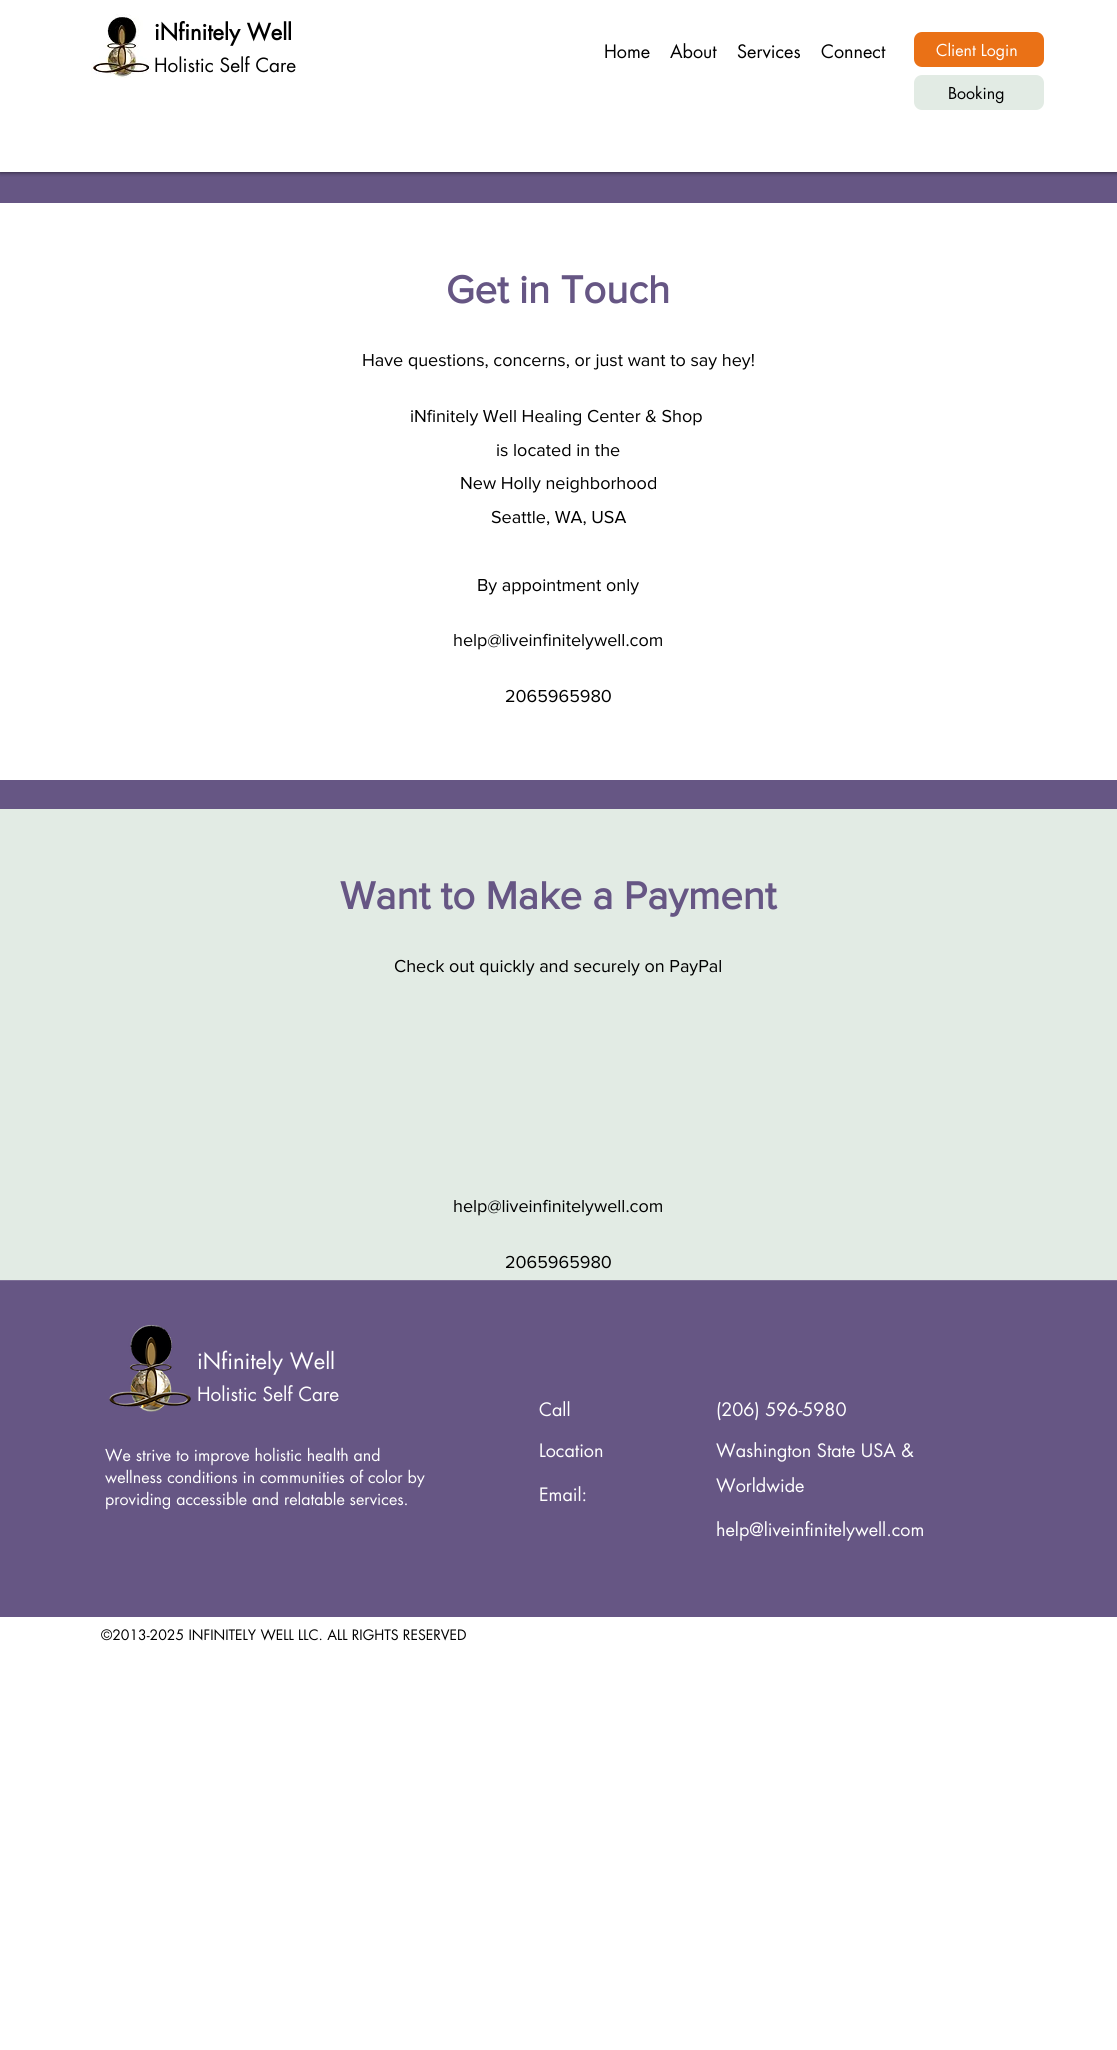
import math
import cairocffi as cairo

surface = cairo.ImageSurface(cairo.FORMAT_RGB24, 1117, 2050)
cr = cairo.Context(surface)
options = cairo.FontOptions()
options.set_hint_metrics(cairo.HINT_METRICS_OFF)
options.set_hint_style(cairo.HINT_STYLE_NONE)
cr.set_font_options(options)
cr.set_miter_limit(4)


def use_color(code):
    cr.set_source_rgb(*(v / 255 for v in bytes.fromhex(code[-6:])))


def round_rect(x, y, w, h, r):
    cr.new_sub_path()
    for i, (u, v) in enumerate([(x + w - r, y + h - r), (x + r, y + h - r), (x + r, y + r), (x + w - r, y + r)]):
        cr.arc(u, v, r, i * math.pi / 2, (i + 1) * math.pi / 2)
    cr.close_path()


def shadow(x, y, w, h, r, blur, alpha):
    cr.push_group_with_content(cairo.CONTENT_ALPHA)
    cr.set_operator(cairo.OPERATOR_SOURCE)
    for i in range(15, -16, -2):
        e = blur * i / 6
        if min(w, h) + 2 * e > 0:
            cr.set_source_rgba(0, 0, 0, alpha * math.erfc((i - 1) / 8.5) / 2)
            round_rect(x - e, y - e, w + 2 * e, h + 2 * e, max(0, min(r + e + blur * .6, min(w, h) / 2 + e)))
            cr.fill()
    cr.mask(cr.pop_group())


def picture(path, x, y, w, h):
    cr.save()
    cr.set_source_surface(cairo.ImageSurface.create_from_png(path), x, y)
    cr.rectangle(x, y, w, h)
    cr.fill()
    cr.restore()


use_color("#ffffff")
cr.paint()
use_color("#665684")
cr.rectangle(0, 172, 1117, 637)
cr.fill()
cr.save()
cr.rectangle(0, 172, 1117, 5)
cr.clip()
use_color("#000000")
shadow(0, 0, 1117, 172, 0, 2.5, 0.7)
cr.restore()
picture("img1.png", 91, 14, 60, 64)
cr.select_font_face("futura", cairo.FONT_SLANT_NORMAL, cairo.FONT_WEIGHT_BOLD)
cr.set_font_size(22)
use_color("#000000")
cr.move_to(154, 40)
cr.show_text("iNfinitely Well")
cr.select_font_face("futura")
cr.set_font_size(19)
cr.move_to(154, 72)
cr.show_text("Holistic Self Care")
cr.set_font_size(18)
cr.move_to(604, 58)
cr.show_text("Home")
cr.move_to(670, 58)
cr.show_text("About")
cr.move_to(737, 58)
cr.show_text("Services")
cr.move_to(821, 58)
cr.show_text("Connect")
use_color("#ea7116")
round_rect(914, 32, 130, 35, 8)
cr.fill()
cr.set_font_size(16)
use_color("#ffffff")
cr.move_to(936, 56)
cr.show_text("Client Login")
use_color("#e2ebe4")
round_rect(914, 75, 130, 35, 8)
cr.fill()
use_color("#000000")
cr.move_to(948, 99)
cr.show_text("Booking")
use_color("#ffffff")
cr.rectangle(0, 203, 1117, 577)
cr.fill()
cr.select_font_face("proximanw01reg", cairo.FONT_SLANT_NORMAL, cairo.FONT_WEIGHT_BOLD)
cr.set_font_size(40)
use_color("#665684")
cr.move_to(446, 303)
cr.show_text("Get in Touch")
cr.select_font_face("proximanw01reg")
cr.set_font_size(18)
use_color("#000000")
cr.move_to(362, 366)
cr.show_text("Have questions, concerns, or just want to say hey!")
cr.move_to(410, 422)
cr.show_text("iNfinitely Well Healing Center & Shop")
cr.move_to(496, 456)
cr.show_text("is located in the")
cr.move_to(460, 489)
cr.show_text("New Holly neighborhood")
cr.move_to(491, 523)
cr.show_text("Seattle, WA, USA")
cr.move_to(477, 591)
cr.show_text("By appointment only")
cr.move_to(453, 646)
cr.show_text("help@liveinfinitelywell.com")
cr.move_to(505, 702)
cr.show_text("2065965980")
use_color("#e2ebe4")
cr.rectangle(0, 809, 1117, 471)
cr.fill()
cr.select_font_face("proximanw01reg", cairo.FONT_SLANT_NORMAL, cairo.FONT_WEIGHT_BOLD)
cr.set_font_size(40)
use_color("#665684")
cr.move_to(340, 909)
cr.show_text("Want to Make a Payment")
cr.select_font_face("proximanw01reg")
cr.set_font_size(18)
use_color("#000000")
cr.move_to(394, 972)
cr.show_text("Check out quickly and securely on PayPal")
cr.move_to(453, 1212)
cr.show_text("help@liveinfinitelywell.com")
cr.move_to(505, 1268)
cr.show_text("2065965980")
use_color("#665684")
cr.rectangle(0, 1281, 1117, 336)
cr.fill()
use_color("#7d6f96")
cr.rectangle(0, 1280, 1117, 1)
cr.fill()
picture("img2.png", 109, 1325, 82, 87)
cr.select_font_face("futura")
cr.set_font_size(22)
use_color("#ffffff")
cr.move_to(197, 1369)
cr.show_text("iNfinitely Well")
cr.set_font_size(19)
cr.move_to(197, 1401)
cr.show_text("Holistic Self Care")
cr.set_font_size(16)
cr.move_to(105, 1461)
cr.show_text("We strive to improve holistic health and")
cr.move_to(105, 1483)
cr.show_text("wellness conditions in communities of color by")
cr.move_to(105, 1505)
cr.show_text("providing accessible and relatable services.")
cr.set_font_size(18)
cr.move_to(539, 1416)
cr.show_text("Call")
cr.move_to(539, 1457)
cr.show_text("Location")
cr.move_to(539, 1501)
cr.show_text("Email:")
cr.move_to(716, 1416)
cr.show_text("(206) 596-5980")
cr.move_to(716, 1457)
cr.show_text("Washington State USA &")
cr.move_to(716, 1492)
cr.show_text("Worldwide")
cr.move_to(716, 1536)
cr.show_text("help@liveinfinitelywell.com")
cr.set_font_size(14)
use_color("#000000")
cr.move_to(101, 1640)
cr.show_text("©2013-2025 INFINITELY WELL LLC. ALL RIGHTS RESERVED")
surface.write_to_png("result.png")
